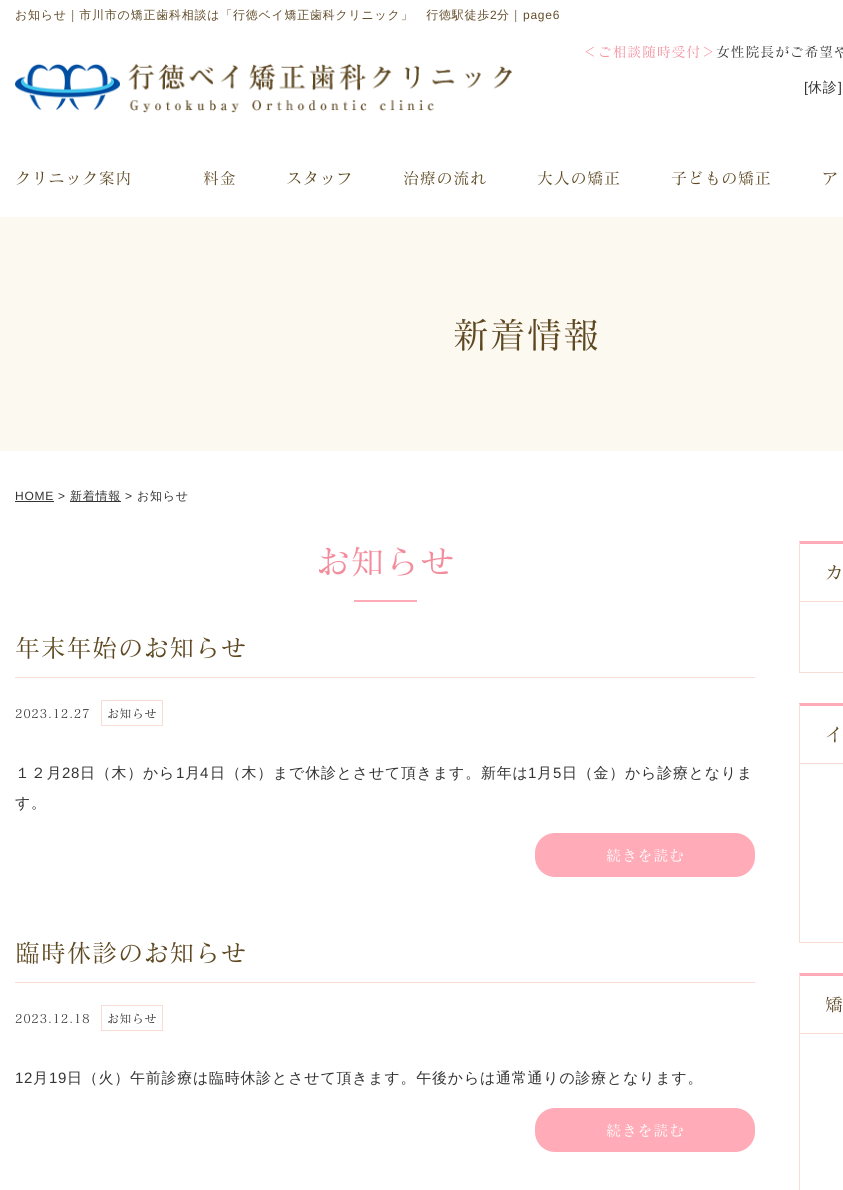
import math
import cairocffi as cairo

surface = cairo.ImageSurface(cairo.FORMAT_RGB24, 843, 1190)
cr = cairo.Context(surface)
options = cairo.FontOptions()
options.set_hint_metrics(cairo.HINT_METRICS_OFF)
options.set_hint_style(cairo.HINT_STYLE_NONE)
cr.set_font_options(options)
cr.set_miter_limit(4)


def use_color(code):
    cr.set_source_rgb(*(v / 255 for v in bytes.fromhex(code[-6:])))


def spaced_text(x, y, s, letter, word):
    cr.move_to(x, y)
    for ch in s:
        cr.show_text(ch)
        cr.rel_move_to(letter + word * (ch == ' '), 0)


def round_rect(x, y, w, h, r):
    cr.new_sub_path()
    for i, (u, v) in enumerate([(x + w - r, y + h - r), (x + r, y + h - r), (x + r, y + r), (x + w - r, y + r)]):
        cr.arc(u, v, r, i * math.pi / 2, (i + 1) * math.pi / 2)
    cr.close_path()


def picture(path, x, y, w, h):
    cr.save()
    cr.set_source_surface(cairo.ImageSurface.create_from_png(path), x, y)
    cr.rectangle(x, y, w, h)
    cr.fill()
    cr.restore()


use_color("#ffffff")
cr.paint()
cr.select_font_face("WenQuanYi Zen Hei Medium")
cr.set_font_size(12)
use_color("#624c29")
spaced_text(15, 19, "お知らせ｜市川市の矯正歯科相談は「行徳ベイ矯正歯科クリニック」　行徳駅徒歩", 0.75, 0)
cr.select_font_face("Liberation Sans")
spaced_text(490, 19, "2", 0.75, 0)
cr.select_font_face("WenQuanYi Zen Hei Medium")
spaced_text(497, 19, "分｜", 0.75, 0)
cr.select_font_face("Liberation Sans")
spaced_text(523, 19, "page6", 0.75, 0)
picture("img1.png", 15, 63, 497, 50)
cr.select_font_face("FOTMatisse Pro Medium")
cr.set_font_size(14)
use_color("#f38d9d")
spaced_text(583, 57, "＜ご相談随時受付＞", 0.75, 0)
use_color("#333333")
spaced_text(716, 57, "女性院長がご希望や", 0.75, 0)
cr.select_font_face("Liberation Sans")
spaced_text(804, 92, "[", 0.75, 0)
cr.select_font_face("WenQuanYi Zen Hei Medium")
spaced_text(808, 92, "休診", 0.75, 0)
cr.select_font_face("Liberation Sans")
spaced_text(838, 92, "]", 0.75, 0)
cr.select_font_face("FOTMatisse Pro Medium")
cr.set_font_size(16)
use_color("#5e4822")
spaced_text(15, 184, "クリニック案内", 0.75, 0)
spaced_text(203, 184, "料金", 0.75, 0)
spaced_text(286, 184, "スタッフ", 0.75, 0)
spaced_text(403, 184, "治療の流れ", 0.75, 0)
spaced_text(537, 184, "大人の矯正", 0.75, 0)
spaced_text(671, 184, "子どもの矯正", 0.75, 0)
spaced_text(822, 184, "ア", 0.75, 0)
use_color("#fcf9f1")
cr.rectangle(0, 217, 843, 234)
cr.fill()
cr.set_font_size(36)
use_color("#5e4822")
spaced_text(453, 348, "新着情報", 0.75, 0)
cr.select_font_face("Liberation Sans")
cr.set_font_size(12)
use_color("#333333")
spaced_text(15, 500, "HOME >", 0.75, 0)
cr.rectangle(15, 501, 39, 1)
cr.fill()
cr.rectangle(70, 501, 51, 1)
cr.fill()
cr.select_font_face("WenQuanYi Zen Hei Medium")
spaced_text(70, 500, "新着情報", 0.75, 0)
cr.select_font_face("Liberation Sans")
spaced_text(125, 500, ">", 0.75, 0)
cr.select_font_face("WenQuanYi Zen Hei Medium")
spaced_text(137, 500, "お知らせ", 0.75, 0)
cr.select_font_face("FOTMatisse Pro Medium")
cr.set_font_size(34)
use_color("#f38d9d")
spaced_text(316, 574, "お知らせ", 0.75, 0)
use_color("#ffabb8")
cr.rectangle(354, 600, 63, 2)
cr.fill()
use_color("#f8ddd7")
cr.rectangle(15, 677, 740, 1)
cr.fill()
cr.set_font_size(25)
use_color("#5e4822")
spaced_text(15, 657, "年末年始のお知らせ", 0.75, 0)
cr.set_font_size(12)
use_color("#333333")
spaced_text(15, 718, "2023.12.27", 0.5, 0)
cr.rectangle(101.5, 700.5, 61, 25)
use_color("#f8ddd7")
cr.set_line_width(1)
cr.stroke()
use_color("#333333")
spaced_text(107, 718, "お知らせ", 0.5, 0)
cr.select_font_face("WenQuanYi Zen Hei Medium")
cr.set_font_size(15)
spaced_text(15, 778, "１２月", 0.75, 0)
cr.select_font_face("Liberation Sans")
spaced_text(62, 778, "28", 0.75, 0)
cr.select_font_face("WenQuanYi Zen Hei Medium")
spaced_text(80, 778, "日（木）から", 0.75, 0)
cr.select_font_face("Liberation Sans")
spaced_text(176, 778, "1", 0.75, 0)
cr.select_font_face("WenQuanYi Zen Hei Medium")
spaced_text(185, 778, "月", 0.75, 0)
cr.select_font_face("Liberation Sans")
spaced_text(200, 778, "4", 0.75, 0)
cr.select_font_face("WenQuanYi Zen Hei Medium")
spaced_text(210, 778, "日（木）まで休診とさせて頂きます。新年は", 0.75, 0)
cr.select_font_face("Liberation Sans")
spaced_text(528, 778, "1", 0.75, 0)
cr.select_font_face("WenQuanYi Zen Hei Medium")
spaced_text(537, 778, "月", 0.75, 0)
cr.select_font_face("Liberation Sans")
spaced_text(553, 778, "5", 0.75, 0)
cr.select_font_face("WenQuanYi Zen Hei Medium")
spaced_text(562, 778, "日（金）から診療となりま", 0.75, 0)
spaced_text(15, 808, "す。", 0.75, 0)
use_color("#ffabb8")
round_rect(535, 833, 220, 44, 20)
cr.fill()
cr.select_font_face("FOTMatisse Pro Medium")
use_color("#ffffff")
spaced_text(606, 861, "続きを読む", 0.75, 0)
use_color("#f8ddd7")
cr.rectangle(15, 982, 740, 1)
cr.fill()
cr.set_font_size(25)
use_color("#5e4822")
spaced_text(15, 962, "臨時休診のお知らせ", 0.75, 0)
cr.set_font_size(12)
use_color("#333333")
spaced_text(15, 1023, "2023.12.18", 0.5, 0)
cr.rectangle(101.5, 1005.5, 61, 25)
use_color("#f8ddd7")
cr.stroke()
use_color("#333333")
spaced_text(107, 1023, "お知らせ", 0.5, 0)
cr.select_font_face("Liberation Sans")
cr.set_font_size(15)
spaced_text(15, 1083, "12", 0.75, 0)
cr.select_font_face("WenQuanYi Zen Hei Medium")
spaced_text(33, 1083, "月", 0.75, 0)
cr.select_font_face("Liberation Sans")
spaced_text(49, 1083, "19", 0.75, 0)
cr.select_font_face("WenQuanYi Zen Hei Medium")
spaced_text(67, 1083, "日（火）午前診療は臨時休診とさせて頂きます。午後からは通常通りの診療となります。", 0.75, 0)
use_color("#ffabb8")
round_rect(535, 1108, 220, 44, 20)
cr.fill()
cr.select_font_face("FOTMatisse Pro Medium")
use_color("#ffffff")
spaced_text(606, 1136, "続きを読む", 0.75, 0)
use_color("#ffabb8")
cr.new_path()
cr.move_to(799, 541)
cr.line_to(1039, 541)
cr.line_to(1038, 544)
cr.line_to(800, 544)
cr.close_path()
cr.fill()
use_color("#f8ddd7")
cr.rectangle(799, 672, 44, 1)
cr.fill()
cr.new_path()
cr.move_to(799, 673)
cr.line_to(799, 541)
cr.line_to(800, 544)
cr.line_to(800, 672)
cr.close_path()
cr.fill()
cr.rectangle(800, 601, 43, 1)
cr.fill()
cr.set_font_size(18)
use_color("#5e4822")
spaced_text(825, 579, "カ", 1, 0)
use_color("#ffabb8")
cr.new_path()
cr.move_to(799, 703)
cr.line_to(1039, 703)
cr.line_to(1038, 706)
cr.line_to(800, 706)
cr.close_path()
cr.fill()
use_color("#f8ddd7")
cr.rectangle(799, 942, 44, 1)
cr.fill()
cr.new_path()
cr.move_to(799, 943)
cr.line_to(799, 703)
cr.line_to(800, 706)
cr.line_to(800, 942)
cr.close_path()
cr.fill()
cr.rectangle(800, 763, 43, 1)
cr.fill()
use_color("#5e4822")
spaced_text(825, 741, "イ", 1, 0)
use_color("#ffabb8")
cr.new_path()
cr.move_to(799, 973)
cr.line_to(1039, 973)
cr.line_to(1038, 976)
cr.line_to(800, 976)
cr.close_path()
cr.fill()
use_color("#f8ddd7")
cr.new_path()
cr.move_to(799, 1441)
cr.line_to(799, 973)
cr.line_to(800, 976)
cr.line_to(800, 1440)
cr.close_path()
cr.fill()
cr.rectangle(800, 1033, 43, 1)
cr.fill()
use_color("#5e4822")
spaced_text(825, 1011, "矯", 1, 0)
surface.write_to_png("result.png")
